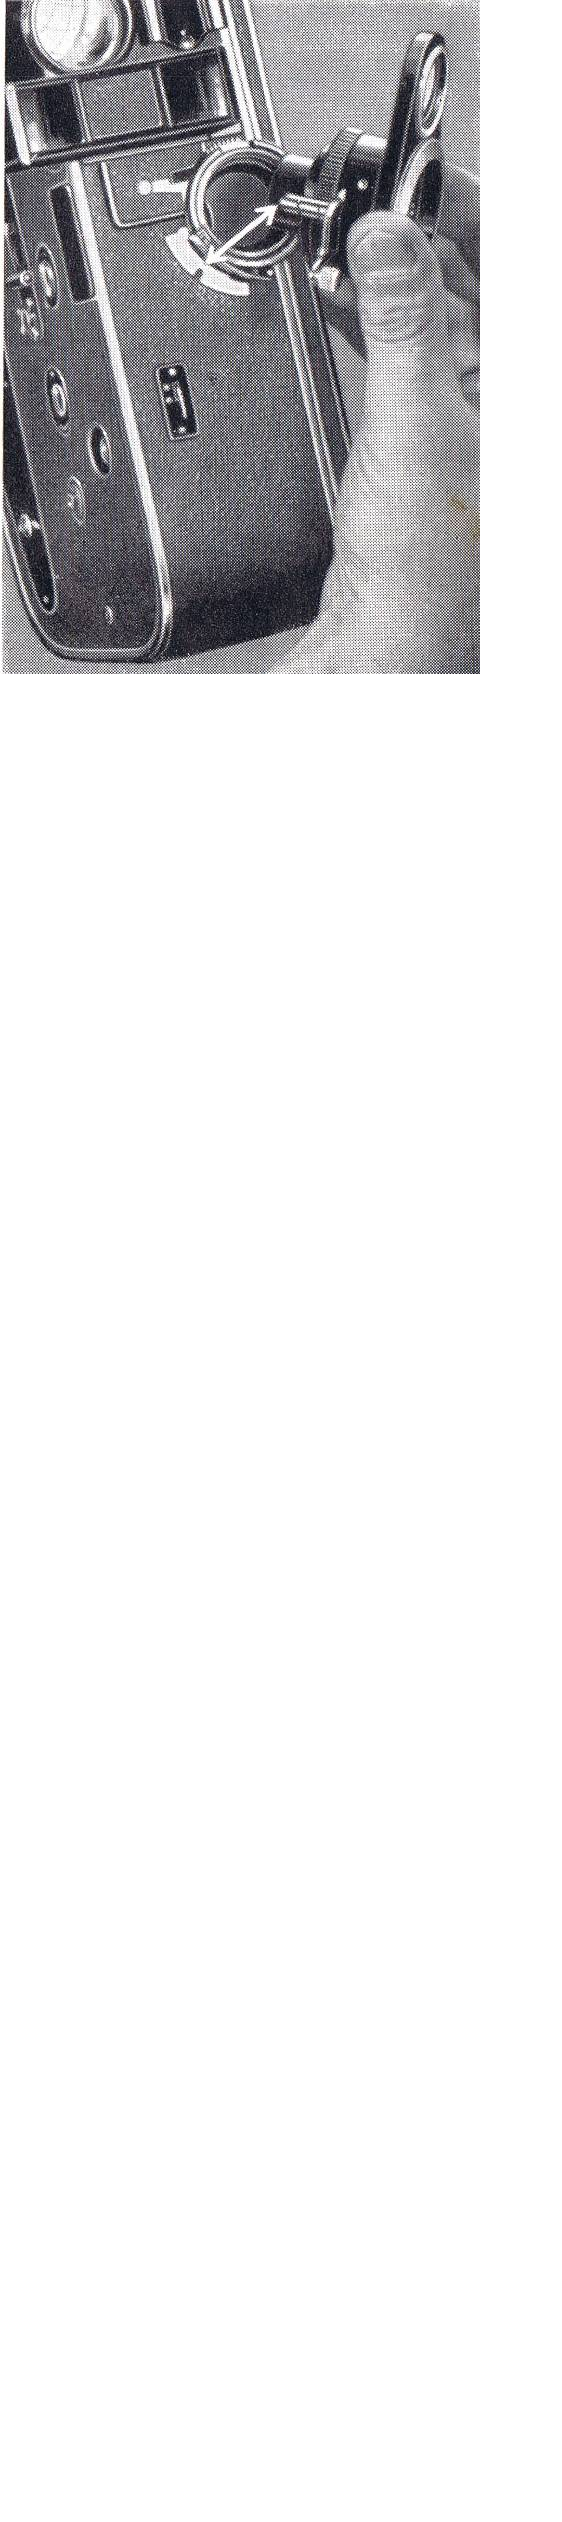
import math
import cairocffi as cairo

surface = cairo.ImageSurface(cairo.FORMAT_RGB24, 562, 2522)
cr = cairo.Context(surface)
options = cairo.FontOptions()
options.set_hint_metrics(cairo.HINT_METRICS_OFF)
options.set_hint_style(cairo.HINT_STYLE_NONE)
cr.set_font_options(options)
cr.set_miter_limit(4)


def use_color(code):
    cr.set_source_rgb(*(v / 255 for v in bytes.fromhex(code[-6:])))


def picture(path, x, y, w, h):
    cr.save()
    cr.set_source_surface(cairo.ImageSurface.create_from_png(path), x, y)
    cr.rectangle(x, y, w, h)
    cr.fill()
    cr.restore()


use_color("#ffffff")
cr.paint()
picture("img1.png", 0, 0, 480, 674)
surface.write_to_png("result.png")
